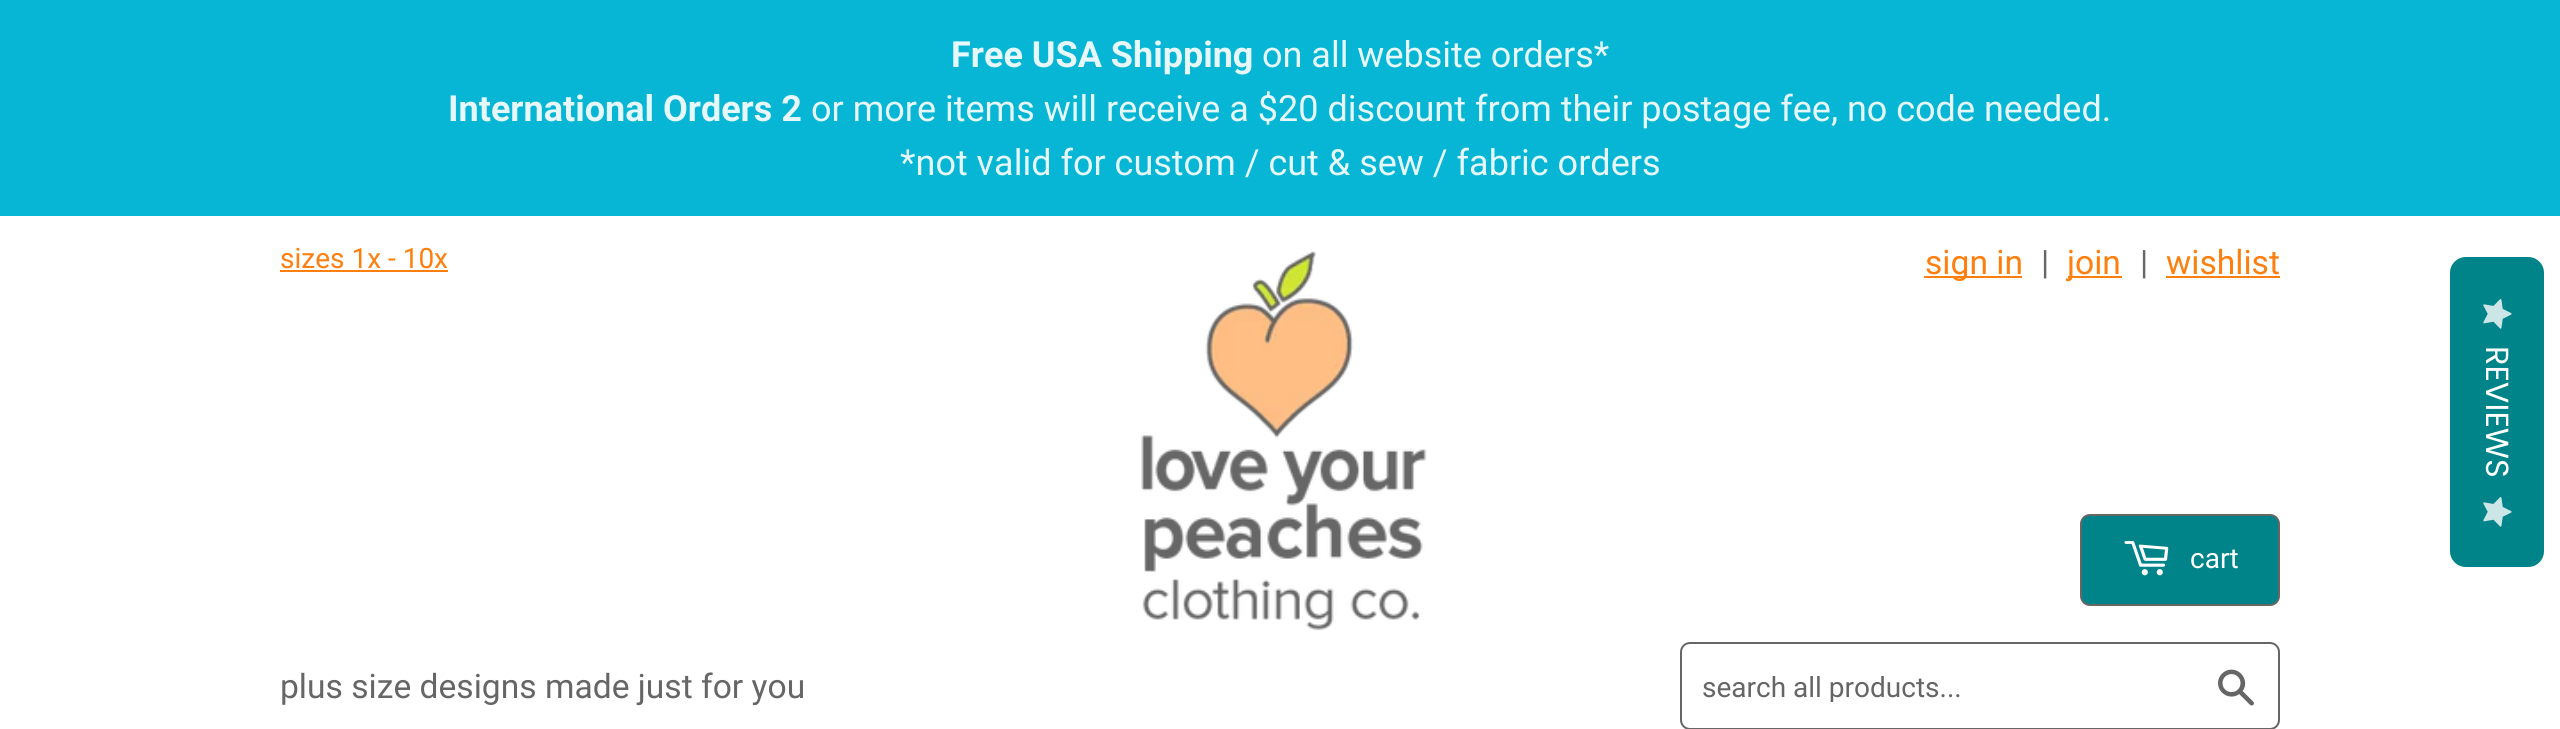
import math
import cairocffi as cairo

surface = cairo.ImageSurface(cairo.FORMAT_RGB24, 2560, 729)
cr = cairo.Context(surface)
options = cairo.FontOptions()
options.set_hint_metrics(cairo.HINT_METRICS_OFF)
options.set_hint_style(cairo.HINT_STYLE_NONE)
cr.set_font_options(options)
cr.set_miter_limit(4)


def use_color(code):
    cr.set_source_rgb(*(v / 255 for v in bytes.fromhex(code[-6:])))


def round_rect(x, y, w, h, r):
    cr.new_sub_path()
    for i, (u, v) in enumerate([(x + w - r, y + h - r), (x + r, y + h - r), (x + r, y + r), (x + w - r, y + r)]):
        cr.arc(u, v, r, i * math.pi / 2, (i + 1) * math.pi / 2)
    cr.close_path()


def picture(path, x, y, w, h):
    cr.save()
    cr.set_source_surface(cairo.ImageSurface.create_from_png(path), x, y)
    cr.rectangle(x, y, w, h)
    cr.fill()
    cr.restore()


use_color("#ffffff")
cr.paint()
use_color("#06b6d4")
cr.rectangle(0, 0, 2560, 216)
cr.fill()
cr.select_font_face("Roboto", cairo.FONT_SLANT_NORMAL, cairo.FONT_WEIGHT_BOLD)
cr.set_font_size(36)
use_color("#e6f8fb")
cr.move_to(951, 67)
cr.show_text("Free USA Shipping")
cr.select_font_face("Roboto")
cr.move_to(1262, 67)
cr.show_text("on all website orders*")
cr.select_font_face("Roboto", cairo.FONT_SLANT_NORMAL, cairo.FONT_WEIGHT_BOLD)
cr.move_to(448, 121)
cr.show_text("International Orders 2")
cr.select_font_face("Roboto")
cr.move_to(811, 121)
cr.show_text("or more items will receive a $20 discount from their postage fee, no code needed.")
cr.move_to(900, 175)
cr.show_text("*not valid for custom / cut & sew / fabric orders")
cr.set_font_size(28)
use_color("#fd7f0f")
cr.move_to(280, 268)
cr.show_text("sizes 1x - 10x")
cr.rectangle(280, 270, 168, 2)
cr.fill()
picture("img1.png", 1141, 251, 286, 380)
cr.rectangle(1924, 276, 98, 2)
cr.fill()
cr.set_font_size(33.6)
cr.move_to(1925, 274)
cr.show_text("sign in")
use_color("#666666")
cr.move_to(2041, 274)
cr.show_text("|")
use_color("#fd7f0f")
cr.rectangle(2068, 276, 54, 2)
cr.fill()
cr.move_to(2067, 274)
cr.show_text("join")
use_color("#666666")
cr.move_to(2140, 274)
cr.show_text("|")
use_color("#fd7f0f")
cr.move_to(2166, 274)
cr.show_text("wishlist")
cr.rectangle(2166, 276, 114, 2)
cr.fill()
use_color("#008489")
round_rect(2081, 515, 198, 90, 9)
cr.fill_preserve()
use_color("#666666")
cr.stroke()
picture("img2.png", 2124, 541, 45, 35)
cr.set_font_size(28)
use_color("#ffffff")
cr.move_to(2190, 568)
cr.show_text("cart")
cr.set_font_size(33.6)
use_color("#666666")
cr.move_to(280, 698)
cr.show_text("plus size designs made just for you")
round_rect(1681, 643, 598, 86, 9)
cr.stroke()
cr.save()
cr.rectangle(1702, 670, 478, 32)
cr.clip()
cr.set_font_size(28)
cr.move_to(1702, 697)
cr.show_text("search all products...")
cr.restore()
picture("img3.png", 2218, 669, 36, 37)
use_color("#008489")
cr.new_path()
cr.move_to(2544, 273)
cr.line_to(2544, 551)
cr.curve_to(2544, 560, 2537, 567, 2528, 567)
cr.line_to(2466, 567)
cr.curve_to(2457, 567, 2450, 560, 2450, 551)
cr.line_to(2450, 273)
cr.curve_to(2450, 264, 2457, 257, 2466, 257)
cr.line_to(2528, 257)
cr.curve_to(2537, 257, 2544, 264, 2544, 273)
cr.close_path()
cr.fill()
picture("img4.png", 2483, 299, 29, 30)
cr.select_font_face("Poppins")
cr.set_font_size(32)
use_color("#ffffff")
cr.save()
cr.translate(2486, 346)
cr.rotate(90 * math.pi / 180)
cr.move_to(0, 0)
cr.show_text("REVIEWS")
cr.restore()
picture("img4.png", 2483, 497, 29, 30)
surface.write_to_png("result.png")
